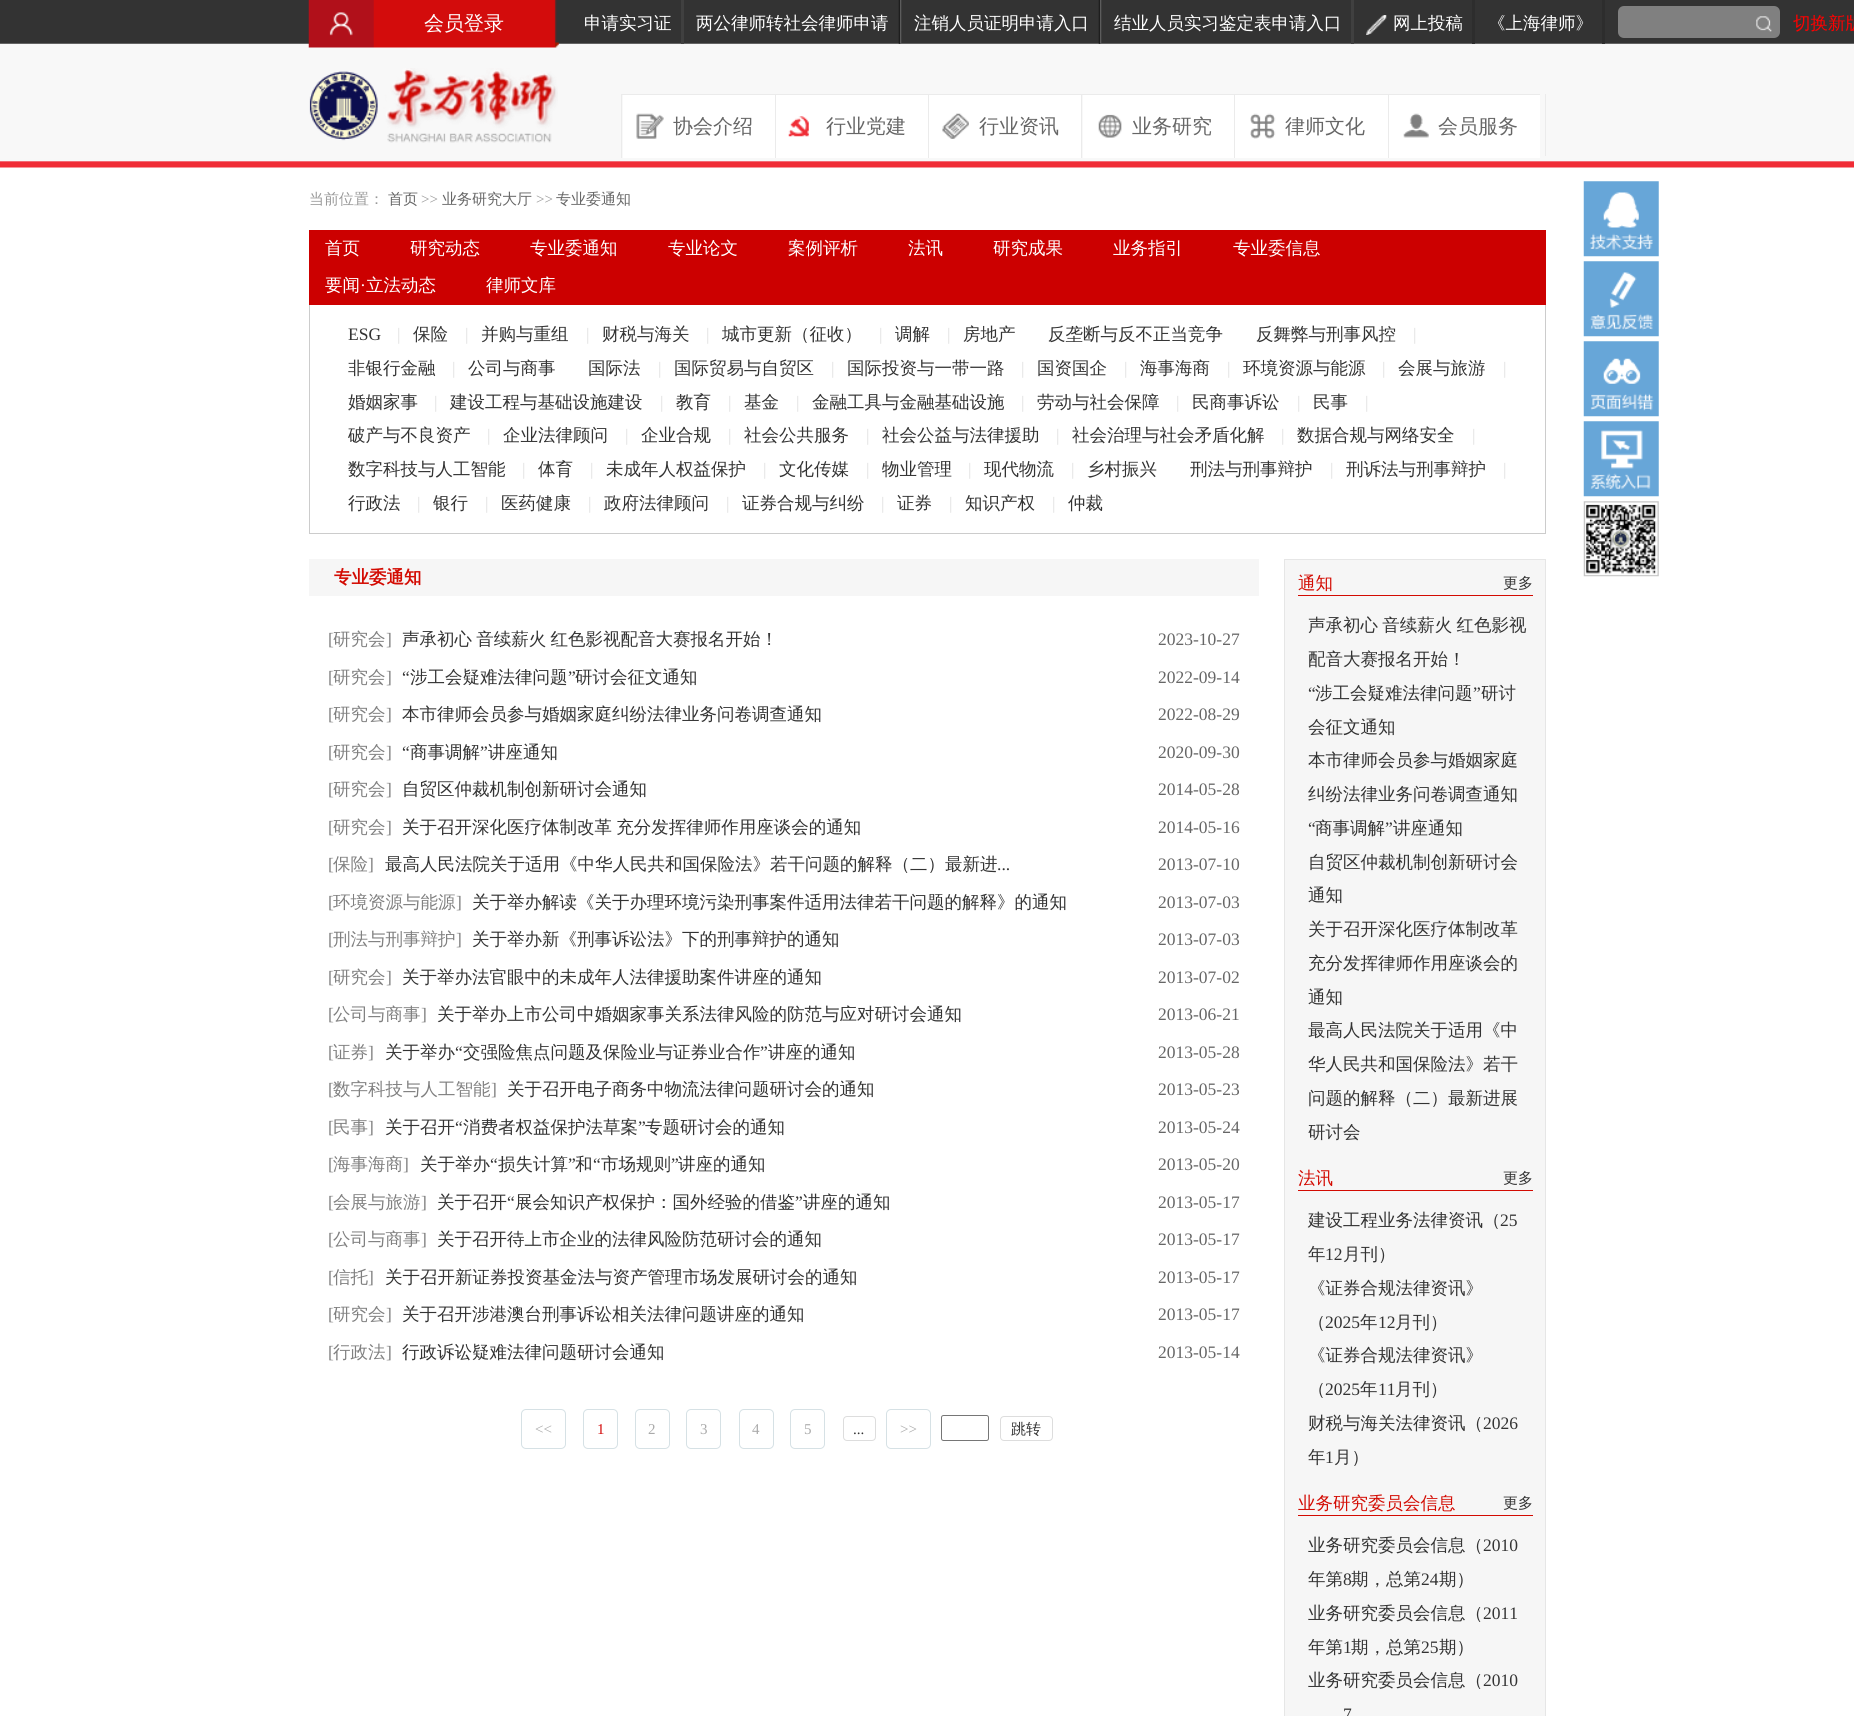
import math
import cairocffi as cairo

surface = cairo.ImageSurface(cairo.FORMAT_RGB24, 1854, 1716)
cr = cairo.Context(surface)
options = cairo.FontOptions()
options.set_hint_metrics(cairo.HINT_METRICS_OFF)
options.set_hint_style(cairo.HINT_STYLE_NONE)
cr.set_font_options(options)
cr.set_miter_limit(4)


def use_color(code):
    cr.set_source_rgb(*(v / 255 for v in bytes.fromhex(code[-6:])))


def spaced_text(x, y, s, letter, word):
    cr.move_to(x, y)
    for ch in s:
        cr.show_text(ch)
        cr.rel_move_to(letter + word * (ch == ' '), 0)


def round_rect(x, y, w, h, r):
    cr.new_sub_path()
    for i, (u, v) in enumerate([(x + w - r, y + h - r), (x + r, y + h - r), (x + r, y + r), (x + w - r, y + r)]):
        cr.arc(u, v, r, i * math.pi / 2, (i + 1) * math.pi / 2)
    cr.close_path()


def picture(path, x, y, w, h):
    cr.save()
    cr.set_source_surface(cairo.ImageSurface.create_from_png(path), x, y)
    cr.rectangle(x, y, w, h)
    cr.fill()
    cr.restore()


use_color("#ffffff")
cr.paint()
picture("img1.png", 0, 0, 1854, 168)
picture("img2.png", 308, 0, 251, 48)
cr.select_font_face("WenQuanYi Zen Hei Medium")
cr.set_font_size(20)
use_color("#ffffff")
cr.move_to(424, 30)
cr.show_text("会员登录")
use_color("#404040")
cr.rectangle(681, 0, 3, 44)
cr.fill()
cr.set_font_size(17.5)
use_color("#ffffff")
cr.move_to(584, 29)
cr.show_text("申请实习证")
picture("img3.png", 898, 0, 4, 44)
cr.move_to(696, 29)
cr.show_text("两公律师转社会律师申请")
picture("img3.png", 1098, 0, 4, 44)
cr.move_to(914, 29)
cr.show_text("注销人员证明申请入口")
use_color("#404040")
cr.rectangle(1351, 0, 3, 44)
cr.fill()
use_color("#ffffff")
cr.move_to(1114, 29)
cr.show_text("结业人员实习鉴定表申请入口")
use_color("#2d2d2d")
cr.rectangle(1472, 0, 3, 44)
cr.fill()
picture("img4.png", 1366, 15, 21, 20)
use_color("#ffffff")
cr.move_to(1393, 29)
cr.show_text("网上投稿")
use_color("#2d2d2d")
cr.rectangle(1602, 0, 3, 44)
cr.fill()
use_color("#ffffff")
cr.move_to(1488, 29)
cr.show_text("《上海律师》")
use_color("#808080")
round_rect(1618, 6, 162, 32, 6)
cr.fill()
picture("img5.png", 1756, 16, 16, 16)
use_color("#ff0000")
cr.move_to(1793, 29)
cr.show_text("切换新版")
picture("img6.png", 309, 68, 249, 75)
use_color("#ebebeb")
cr.rectangle(1545, 94, 1, 62)
cr.fill()
use_color("#ffffff")
cr.rectangle(623, 95, 152, 63)
cr.fill()
picture("img7.png", 636, 113, 28, 26)
use_color("#ebebeb")
cr.rectangle(621, 94, 919, 1)
cr.fill()
cr.rectangle(621, 94, 1, 64)
cr.fill()
cr.set_font_size(20)
use_color("#666666")
cr.move_to(673, 133)
cr.show_text("协会介绍")
use_color("#ffffff")
cr.rectangle(776, 95, 152, 63)
cr.fill()
picture("img8.png", 788, 116, 21, 21)
use_color("#ebebeb")
cr.rectangle(775, 94, 1, 64)
cr.fill()
use_color("#666666")
cr.move_to(826, 133)
cr.show_text("行业党建")
use_color("#ffffff")
cr.rectangle(929, 95, 152, 63)
cr.fill()
picture("img9.png", 942, 113, 27, 26)
use_color("#ebebeb")
cr.rectangle(928, 94, 1, 64)
cr.fill()
use_color("#666666")
cr.move_to(979, 133)
cr.show_text("行业资讯")
use_color("#ffffff")
cr.rectangle(1083, 95, 151, 63)
cr.fill()
picture("img10.png", 1098, 114, 24, 24)
use_color("#ebebeb")
cr.rectangle(1081, 94, 1, 64)
cr.fill()
use_color("#666666")
cr.move_to(1132, 133)
cr.show_text("业务研究")
use_color("#ffffff")
cr.rectangle(1235, 95, 153, 63)
cr.fill()
picture("img11.png", 1250, 113, 26, 26)
use_color("#ebebeb")
cr.rectangle(1234, 94, 1, 64)
cr.fill()
use_color("#666666")
cr.move_to(1285, 133)
cr.show_text("律师文化")
use_color("#ffffff")
cr.rectangle(1389, 95, 151, 63)
cr.fill()
picture("img12.png", 1403, 113, 26, 25)
use_color("#ebebeb")
cr.rectangle(1388, 94, 1, 64)
cr.fill()
use_color("#666666")
cr.move_to(1438, 133)
cr.show_text("会员服务")
picture("img13.png", 1583, 181, 76, 76)
picture("img14.png", 1583, 261, 76, 76)
picture("img15.png", 1583, 341, 76, 76)
picture("img16.png", 1583, 421, 76, 76)
picture("img17.png", 1583, 501, 76, 76)
cr.set_font_size(15)
use_color("#999999")
cr.move_to(309, 204)
cr.show_text("当前位置：")
use_color("#666666")
cr.move_to(388, 204)
cr.show_text("首页")
cr.select_font_face("Liberation Serif")
use_color("#999999")
cr.move_to(421, 204)
cr.show_text(">>")
cr.select_font_face("WenQuanYi Zen Hei Medium")
use_color("#666666")
cr.move_to(442, 204)
cr.show_text("业务研究大厅")
cr.select_font_face("Liberation Serif")
use_color("#999999")
cr.move_to(536, 204)
cr.show_text(">>")
cr.select_font_face("WenQuanYi Zen Hei Medium")
use_color("#666666")
cr.move_to(556, 204)
cr.show_text("专业委通知")
use_color("#cc0000")
cr.rectangle(309, 230, 1237, 75)
cr.fill()
cr.set_font_size(17.5)
use_color("#ffffff")
cr.move_to(325, 254)
cr.show_text("首页")
cr.move_to(410, 254)
cr.show_text("研究动态")
cr.move_to(530, 254)
cr.show_text("专业委通知")
cr.move_to(668, 254)
cr.show_text("专业论文")
cr.move_to(788, 254)
cr.show_text("案例评析")
cr.move_to(908, 254)
cr.show_text("法讯")
cr.move_to(993, 254)
cr.show_text("研究成果")
cr.move_to(1113, 254)
cr.show_text("业务指引")
cr.move_to(1233, 254)
cr.show_text("专业委信息")
cr.move_to(325, 291)
cr.show_text("要闻")
cr.select_font_face("Liberation Serif")
cr.move_to(360, 291)
cr.show_text("·")
cr.select_font_face("WenQuanYi Zen Hei Medium")
cr.move_to(366, 291)
cr.show_text("立法动态")
cr.move_to(486, 291)
cr.show_text("律师文库")
use_color("#cccccc")
cr.rectangle(1545, 305, 1, 229)
cr.fill()
cr.rectangle(309, 533, 1237, 1)
cr.fill()
cr.rectangle(309, 305, 1, 229)
cr.fill()
cr.select_font_face("Liberation Serif")
use_color("#333333")
cr.move_to(348, 340)
cr.show_text("ESG")
use_color("#e0e0e0")
cr.move_to(397, 340)
cr.show_text("|")
cr.select_font_face("WenQuanYi Zen Hei Medium")
use_color("#333333")
cr.move_to(413, 340)
cr.show_text("保险")
cr.select_font_face("Liberation Serif")
use_color("#e0e0e0")
cr.move_to(465, 340)
cr.show_text("|")
cr.select_font_face("WenQuanYi Zen Hei Medium")
use_color("#333333")
cr.move_to(481, 340)
cr.show_text("并购与重组")
cr.select_font_face("Liberation Serif")
use_color("#e0e0e0")
cr.move_to(586, 340)
cr.show_text("|")
cr.select_font_face("WenQuanYi Zen Hei Medium")
use_color("#333333")
cr.move_to(602, 340)
cr.show_text("财税与海关")
cr.select_font_face("Liberation Serif")
use_color("#e0e0e0")
cr.move_to(706, 340)
cr.show_text("|")
cr.select_font_face("WenQuanYi Zen Hei Medium")
use_color("#333333")
cr.move_to(722, 340)
cr.show_text("城市更新（征收）")
cr.select_font_face("Liberation Serif")
use_color("#e0e0e0")
cr.move_to(879, 340)
cr.show_text("|")
cr.select_font_face("WenQuanYi Zen Hei Medium")
use_color("#333333")
cr.move_to(895, 340)
cr.show_text("调解")
cr.select_font_face("Liberation Serif")
use_color("#e0e0e0")
cr.move_to(947, 340)
cr.show_text("|")
cr.select_font_face("WenQuanYi Zen Hei Medium")
use_color("#333333")
cr.move_to(963, 340)
cr.show_text("房地产")
cr.move_to(1048, 340)
cr.show_text("反垄断与反不正当竞争")
cr.move_to(1256, 340)
cr.show_text("反舞弊与刑事风控")
cr.select_font_face("Liberation Serif")
use_color("#e0e0e0")
cr.move_to(1413, 340)
cr.show_text("|")
cr.select_font_face("WenQuanYi Zen Hei Medium")
use_color("#333333")
cr.move_to(348, 374)
cr.show_text("非银行金融")
cr.select_font_face("Liberation Serif")
use_color("#e0e0e0")
cr.move_to(452, 374)
cr.show_text("|")
cr.select_font_face("WenQuanYi Zen Hei Medium")
use_color("#333333")
cr.move_to(468, 374)
cr.show_text("公司与商事")
cr.move_to(588, 374)
cr.show_text("国际法")
cr.select_font_face("Liberation Serif")
use_color("#e0e0e0")
cr.move_to(658, 374)
cr.show_text("|")
cr.select_font_face("WenQuanYi Zen Hei Medium")
use_color("#333333")
cr.move_to(674, 374)
cr.show_text("国际贸易与自贸区")
cr.select_font_face("Liberation Serif")
use_color("#e0e0e0")
cr.move_to(831, 374)
cr.show_text("|")
cr.select_font_face("WenQuanYi Zen Hei Medium")
use_color("#333333")
cr.move_to(847, 374)
cr.show_text("国际投资与一带一路")
cr.select_font_face("Liberation Serif")
use_color("#e0e0e0")
cr.move_to(1021, 374)
cr.show_text("|")
cr.select_font_face("WenQuanYi Zen Hei Medium")
use_color("#333333")
cr.move_to(1037, 374)
cr.show_text("国资国企")
cr.select_font_face("Liberation Serif")
use_color("#e0e0e0")
cr.move_to(1124, 374)
cr.show_text("|")
cr.select_font_face("WenQuanYi Zen Hei Medium")
use_color("#333333")
cr.move_to(1140, 374)
cr.show_text("海事海商")
cr.select_font_face("Liberation Serif")
use_color("#e0e0e0")
cr.move_to(1227, 374)
cr.show_text("|")
cr.select_font_face("WenQuanYi Zen Hei Medium")
use_color("#333333")
cr.move_to(1243, 374)
cr.show_text("环境资源与能源")
cr.select_font_face("Liberation Serif")
use_color("#e0e0e0")
cr.move_to(1382, 374)
cr.show_text("|")
cr.select_font_face("WenQuanYi Zen Hei Medium")
use_color("#333333")
cr.move_to(1398, 374)
cr.show_text("会展与旅游")
cr.select_font_face("Liberation Serif")
use_color("#e0e0e0")
cr.move_to(1503, 374)
cr.show_text("|")
cr.select_font_face("WenQuanYi Zen Hei Medium")
use_color("#333333")
cr.move_to(348, 408)
cr.show_text("婚姻家事")
cr.select_font_face("Liberation Serif")
use_color("#e0e0e0")
cr.move_to(434, 408)
cr.show_text("|")
cr.select_font_face("WenQuanYi Zen Hei Medium")
use_color("#333333")
cr.move_to(450, 408)
cr.show_text("建设工程与基础设施建设")
cr.select_font_face("Liberation Serif")
use_color("#e0e0e0")
cr.move_to(660, 408)
cr.show_text("|")
cr.select_font_face("WenQuanYi Zen Hei Medium")
use_color("#333333")
cr.move_to(676, 408)
cr.show_text("教育")
cr.select_font_face("Liberation Serif")
use_color("#e0e0e0")
cr.move_to(728, 408)
cr.show_text("|")
cr.select_font_face("WenQuanYi Zen Hei Medium")
use_color("#333333")
cr.move_to(744, 408)
cr.show_text("基金")
cr.select_font_face("Liberation Serif")
use_color("#e0e0e0")
cr.move_to(796, 408)
cr.show_text("|")
cr.select_font_face("WenQuanYi Zen Hei Medium")
use_color("#333333")
cr.move_to(812, 408)
cr.show_text("金融工具与金融基础设施")
cr.select_font_face("Liberation Serif")
use_color("#e0e0e0")
cr.move_to(1021, 408)
cr.show_text("|")
cr.select_font_face("WenQuanYi Zen Hei Medium")
use_color("#333333")
cr.move_to(1037, 408)
cr.show_text("劳动与社会保障")
cr.select_font_face("Liberation Serif")
use_color("#e0e0e0")
cr.move_to(1176, 408)
cr.show_text("|")
cr.select_font_face("WenQuanYi Zen Hei Medium")
use_color("#333333")
cr.move_to(1192, 408)
cr.show_text("民商事诉讼")
cr.select_font_face("Liberation Serif")
use_color("#e0e0e0")
cr.move_to(1297, 408)
cr.show_text("|")
cr.select_font_face("WenQuanYi Zen Hei Medium")
use_color("#333333")
cr.move_to(1313, 408)
cr.show_text("民事")
cr.select_font_face("Liberation Serif")
use_color("#e0e0e0")
cr.move_to(1365, 408)
cr.show_text("|")
cr.select_font_face("WenQuanYi Zen Hei Medium")
use_color("#333333")
cr.move_to(348, 441)
cr.show_text("破产与不良资产")
cr.select_font_face("Liberation Serif")
use_color("#e0e0e0")
cr.move_to(487, 441)
cr.show_text("|")
cr.select_font_face("WenQuanYi Zen Hei Medium")
use_color("#333333")
cr.move_to(503, 441)
cr.show_text("企业法律顾问")
cr.select_font_face("Liberation Serif")
use_color("#e0e0e0")
cr.move_to(625, 441)
cr.show_text("|")
cr.select_font_face("WenQuanYi Zen Hei Medium")
use_color("#333333")
cr.move_to(641, 441)
cr.show_text("企业合规")
cr.select_font_face("Liberation Serif")
use_color("#e0e0e0")
cr.move_to(728, 441)
cr.show_text("|")
cr.select_font_face("WenQuanYi Zen Hei Medium")
use_color("#333333")
cr.move_to(744, 441)
cr.show_text("社会公共服务")
cr.select_font_face("Liberation Serif")
use_color("#e0e0e0")
cr.move_to(866, 441)
cr.show_text("|")
cr.select_font_face("WenQuanYi Zen Hei Medium")
use_color("#333333")
cr.move_to(882, 441)
cr.show_text("社会公益与法律援助")
cr.select_font_face("Liberation Serif")
use_color("#e0e0e0")
cr.move_to(1056, 441)
cr.show_text("|")
cr.select_font_face("WenQuanYi Zen Hei Medium")
use_color("#333333")
cr.move_to(1072, 441)
cr.show_text("社会治理与社会矛盾化解")
cr.select_font_face("Liberation Serif")
use_color("#e0e0e0")
cr.move_to(1281, 441)
cr.show_text("|")
cr.select_font_face("WenQuanYi Zen Hei Medium")
use_color("#333333")
cr.move_to(1297, 441)
cr.show_text("数据合规与网络安全")
cr.select_font_face("Liberation Serif")
use_color("#e0e0e0")
cr.move_to(1472, 441)
cr.show_text("|")
cr.select_font_face("WenQuanYi Zen Hei Medium")
use_color("#333333")
cr.move_to(348, 475)
cr.show_text("数字科技与人工智能")
cr.select_font_face("Liberation Serif")
use_color("#e0e0e0")
cr.move_to(522, 475)
cr.show_text("|")
cr.select_font_face("WenQuanYi Zen Hei Medium")
use_color("#333333")
cr.move_to(538, 475)
cr.show_text("体育")
cr.select_font_face("Liberation Serif")
use_color("#e0e0e0")
cr.move_to(590, 475)
cr.show_text("|")
cr.select_font_face("WenQuanYi Zen Hei Medium")
use_color("#333333")
cr.move_to(606, 475)
cr.show_text("未成年人权益保护")
cr.select_font_face("Liberation Serif")
use_color("#e0e0e0")
cr.move_to(763, 475)
cr.show_text("|")
cr.select_font_face("WenQuanYi Zen Hei Medium")
use_color("#333333")
cr.move_to(779, 475)
cr.show_text("文化传媒")
cr.select_font_face("Liberation Serif")
use_color("#e0e0e0")
cr.move_to(866, 475)
cr.show_text("|")
cr.select_font_face("WenQuanYi Zen Hei Medium")
use_color("#333333")
cr.move_to(882, 475)
cr.show_text("物业管理")
cr.select_font_face("Liberation Serif")
use_color("#e0e0e0")
cr.move_to(968, 475)
cr.show_text("|")
cr.select_font_face("WenQuanYi Zen Hei Medium")
use_color("#333333")
cr.move_to(984, 475)
cr.show_text("现代物流")
cr.select_font_face("Liberation Serif")
use_color("#e0e0e0")
cr.move_to(1071, 475)
cr.show_text("|")
cr.select_font_face("WenQuanYi Zen Hei Medium")
use_color("#333333")
cr.move_to(1087, 475)
cr.show_text("乡村振兴")
cr.move_to(1190, 475)
cr.show_text("刑法与刑事辩护")
cr.select_font_face("Liberation Serif")
use_color("#e0e0e0")
cr.move_to(1330, 475)
cr.show_text("|")
cr.select_font_face("WenQuanYi Zen Hei Medium")
use_color("#333333")
cr.move_to(1346, 475)
cr.show_text("刑诉法与刑事辩护")
cr.select_font_face("Liberation Serif")
use_color("#e0e0e0")
cr.move_to(1503, 475)
cr.show_text("|")
cr.select_font_face("WenQuanYi Zen Hei Medium")
use_color("#333333")
cr.move_to(348, 509)
cr.show_text("行政法")
cr.select_font_face("Liberation Serif")
use_color("#e0e0e0")
cr.move_to(417, 509)
cr.show_text("|")
cr.select_font_face("WenQuanYi Zen Hei Medium")
use_color("#333333")
cr.move_to(433, 509)
cr.show_text("银行")
cr.select_font_face("Liberation Serif")
use_color("#e0e0e0")
cr.move_to(485, 509)
cr.show_text("|")
cr.select_font_face("WenQuanYi Zen Hei Medium")
use_color("#333333")
cr.move_to(501, 509)
cr.show_text("医药健康")
cr.select_font_face("Liberation Serif")
use_color("#e0e0e0")
cr.move_to(588, 509)
cr.show_text("|")
cr.select_font_face("WenQuanYi Zen Hei Medium")
use_color("#333333")
cr.move_to(604, 509)
cr.show_text("政府法律顾问")
cr.select_font_face("Liberation Serif")
use_color("#e0e0e0")
cr.move_to(726, 509)
cr.show_text("|")
cr.select_font_face("WenQuanYi Zen Hei Medium")
use_color("#333333")
cr.move_to(742, 509)
cr.show_text("证券合规与纠纷")
cr.select_font_face("Liberation Serif")
use_color("#e0e0e0")
cr.move_to(881, 509)
cr.show_text("|")
cr.select_font_face("WenQuanYi Zen Hei Medium")
use_color("#333333")
cr.move_to(897, 509)
cr.show_text("证券")
cr.select_font_face("Liberation Serif")
use_color("#e0e0e0")
cr.move_to(949, 509)
cr.show_text("|")
cr.select_font_face("WenQuanYi Zen Hei Medium")
use_color("#333333")
cr.move_to(965, 509)
cr.show_text("知识产权")
cr.select_font_face("Liberation Serif")
use_color("#e0e0e0")
cr.move_to(1052, 509)
cr.show_text("|")
cr.select_font_face("WenQuanYi Zen Hei Medium")
use_color("#333333")
cr.move_to(1068, 509)
cr.show_text("仲裁")
use_color("#f6f6f6")
cr.rectangle(309, 559, 950, 37)
cr.fill()
cr.select_font_face("WenQuanYi Zen Hei", cairo.FONT_SLANT_NORMAL, cairo.FONT_WEIGHT_BOLD)
use_color("#d30b02")
cr.move_to(334, 583)
cr.show_text("专业委通知")
cr.select_font_face("Liberation Serif")
use_color("#808080")
cr.move_to(328, 645)
cr.show_text("[")
cr.select_font_face("WenQuanYi Zen Hei Medium")
cr.move_to(333, 645)
cr.show_text("研究会")
cr.select_font_face("Liberation Serif")
cr.move_to(386, 645)
cr.show_text("]")
cr.select_font_face("WenQuanYi Zen Hei Medium")
use_color("#333333")
spaced_text(402, 645, "声承初心 音续薪火 红色影视配音大赛报名开始！", 0, -1)
cr.select_font_face("Liberation Serif")
use_color("#666666")
cr.move_to(1158, 645)
cr.show_text("2023-10-27")
use_color("#808080")
cr.move_to(328, 683)
cr.show_text("[")
cr.select_font_face("WenQuanYi Zen Hei Medium")
cr.move_to(333, 683)
cr.show_text("研究会")
cr.select_font_face("Liberation Serif")
cr.move_to(386, 683)
cr.show_text("]")
use_color("#333333")
cr.move_to(402, 683)
cr.show_text("“")
cr.select_font_face("WenQuanYi Zen Hei Medium")
cr.move_to(410, 683)
cr.show_text("涉工会疑难法律问题")
cr.select_font_face("Liberation Serif")
cr.move_to(568, 683)
cr.show_text("”")
cr.select_font_face("WenQuanYi Zen Hei Medium")
cr.move_to(575, 683)
cr.show_text("研讨会征文通知")
cr.select_font_face("Liberation Serif")
use_color("#666666")
cr.move_to(1158, 683)
cr.show_text("2022-09-14")
use_color("#808080")
cr.move_to(328, 720)
cr.show_text("[")
cr.select_font_face("WenQuanYi Zen Hei Medium")
cr.move_to(333, 720)
cr.show_text("研究会")
cr.select_font_face("Liberation Serif")
cr.move_to(386, 720)
cr.show_text("]")
cr.select_font_face("WenQuanYi Zen Hei Medium")
use_color("#333333")
cr.move_to(402, 720)
cr.show_text("本市律师会员参与婚姻家庭纠纷法律业务问卷调查通知")
cr.select_font_face("Liberation Serif")
use_color("#666666")
cr.move_to(1158, 720)
cr.show_text("2022-08-29")
use_color("#808080")
cr.move_to(328, 758)
cr.show_text("[")
cr.select_font_face("WenQuanYi Zen Hei Medium")
cr.move_to(333, 758)
cr.show_text("研究会")
cr.select_font_face("Liberation Serif")
cr.move_to(386, 758)
cr.show_text("]")
use_color("#333333")
cr.move_to(402, 758)
cr.show_text("“")
cr.select_font_face("WenQuanYi Zen Hei Medium")
cr.move_to(410, 758)
cr.show_text("商事调解")
cr.select_font_face("Liberation Serif")
cr.move_to(480, 758)
cr.show_text("”")
cr.select_font_face("WenQuanYi Zen Hei Medium")
cr.move_to(488, 758)
cr.show_text("讲座通知")
cr.select_font_face("Liberation Serif")
use_color("#666666")
cr.move_to(1158, 758)
cr.show_text("2020-09-30")
use_color("#808080")
cr.move_to(328, 795)
cr.show_text("[")
cr.select_font_face("WenQuanYi Zen Hei Medium")
cr.move_to(333, 795)
cr.show_text("研究会")
cr.select_font_face("Liberation Serif")
cr.move_to(386, 795)
cr.show_text("]")
cr.select_font_face("WenQuanYi Zen Hei Medium")
use_color("#333333")
cr.move_to(402, 795)
cr.show_text("自贸区仲裁机制创新研讨会通知")
cr.select_font_face("Liberation Serif")
use_color("#666666")
cr.move_to(1158, 795)
cr.show_text("2014-05-28")
use_color("#808080")
cr.move_to(328, 833)
cr.show_text("[")
cr.select_font_face("WenQuanYi Zen Hei Medium")
cr.move_to(333, 833)
cr.show_text("研究会")
cr.select_font_face("Liberation Serif")
cr.move_to(386, 833)
cr.show_text("]")
cr.select_font_face("WenQuanYi Zen Hei Medium")
use_color("#333333")
spaced_text(402, 833, "关于召开深化医疗体制改革 充分发挥律师作用座谈会的通知", 0, -1)
cr.select_font_face("Liberation Serif")
use_color("#666666")
cr.move_to(1158, 833)
cr.show_text("2014-05-16")
use_color("#808080")
cr.move_to(328, 870)
cr.show_text("[")
cr.select_font_face("WenQuanYi Zen Hei Medium")
cr.move_to(333, 870)
cr.show_text("保险")
cr.select_font_face("Liberation Serif")
cr.move_to(368, 870)
cr.show_text("]")
cr.select_font_face("WenQuanYi Zen Hei Medium")
use_color("#333333")
cr.move_to(385, 870)
cr.show_text("最高人民法院关于适用《中华人民共和国保险法》若干问题的解释（二）最新进")
cr.select_font_face("Liberation Serif")
cr.move_to(997, 870)
cr.show_text("...")
use_color("#666666")
cr.move_to(1158, 870)
cr.show_text("2013-07-10")
use_color("#808080")
cr.move_to(328, 908)
cr.show_text("[")
cr.select_font_face("WenQuanYi Zen Hei Medium")
cr.move_to(333, 908)
cr.show_text("环境资源与能源")
cr.select_font_face("Liberation Serif")
cr.move_to(456, 908)
cr.show_text("]")
cr.select_font_face("WenQuanYi Zen Hei Medium")
use_color("#333333")
cr.move_to(472, 908)
cr.show_text("关于举办解读《关于办理环境污染刑事案件适用法律若干问题的解释》的通知")
cr.select_font_face("Liberation Serif")
use_color("#666666")
cr.move_to(1158, 908)
cr.show_text("2013-07-03")
use_color("#808080")
cr.move_to(328, 945)
cr.show_text("[")
cr.select_font_face("WenQuanYi Zen Hei Medium")
cr.move_to(333, 945)
cr.show_text("刑法与刑事辩护")
cr.select_font_face("Liberation Serif")
cr.move_to(456, 945)
cr.show_text("]")
cr.select_font_face("WenQuanYi Zen Hei Medium")
use_color("#333333")
cr.move_to(472, 945)
cr.show_text("关于举办新《刑事诉讼法》下的刑事辩护的通知")
cr.select_font_face("Liberation Serif")
use_color("#666666")
cr.move_to(1158, 945)
cr.show_text("2013-07-03")
use_color("#808080")
cr.move_to(328, 983)
cr.show_text("[")
cr.select_font_face("WenQuanYi Zen Hei Medium")
cr.move_to(333, 983)
cr.show_text("研究会")
cr.select_font_face("Liberation Serif")
cr.move_to(386, 983)
cr.show_text("]")
cr.select_font_face("WenQuanYi Zen Hei Medium")
use_color("#333333")
cr.move_to(402, 983)
cr.show_text("关于举办法官眼中的未成年人法律援助案件讲座的通知")
cr.select_font_face("Liberation Serif")
use_color("#666666")
cr.move_to(1158, 983)
cr.show_text("2013-07-02")
use_color("#808080")
cr.move_to(328, 1020)
cr.show_text("[")
cr.select_font_face("WenQuanYi Zen Hei Medium")
cr.move_to(333, 1020)
cr.show_text("公司与商事")
cr.select_font_face("Liberation Serif")
cr.move_to(421, 1020)
cr.show_text("]")
cr.select_font_face("WenQuanYi Zen Hei Medium")
use_color("#333333")
cr.move_to(437, 1020)
cr.show_text("关于举办上市公司中婚姻家事关系法律风险的防范与应对研讨会通知")
cr.select_font_face("Liberation Serif")
use_color("#666666")
cr.move_to(1158, 1020)
cr.show_text("2013-06-21")
use_color("#808080")
cr.move_to(328, 1058)
cr.show_text("[")
cr.select_font_face("WenQuanYi Zen Hei Medium")
cr.move_to(333, 1058)
cr.show_text("证券")
cr.select_font_face("Liberation Serif")
cr.move_to(368, 1058)
cr.show_text("]")
cr.select_font_face("WenQuanYi Zen Hei Medium")
use_color("#333333")
cr.move_to(385, 1058)
cr.show_text("关于举办")
cr.select_font_face("Liberation Serif")
cr.move_to(455, 1058)
cr.show_text("“")
cr.select_font_face("WenQuanYi Zen Hei Medium")
cr.move_to(463, 1058)
cr.show_text("交强险焦点问题及保险业与证券业合作")
cr.select_font_face("Liberation Serif")
cr.move_to(760, 1058)
cr.show_text("”")
cr.select_font_face("WenQuanYi Zen Hei Medium")
cr.move_to(768, 1058)
cr.show_text("讲座的通知")
cr.select_font_face("Liberation Serif")
use_color("#666666")
cr.move_to(1158, 1058)
cr.show_text("2013-05-28")
use_color("#808080")
cr.move_to(328, 1095)
cr.show_text("[")
cr.select_font_face("WenQuanYi Zen Hei Medium")
cr.move_to(333, 1095)
cr.show_text("数字科技与人工智能")
cr.select_font_face("Liberation Serif")
cr.move_to(491, 1095)
cr.show_text("]")
cr.select_font_face("WenQuanYi Zen Hei Medium")
use_color("#333333")
cr.move_to(507, 1095)
cr.show_text("关于召开电子商务中物流法律问题研讨会的通知")
cr.select_font_face("Liberation Serif")
use_color("#666666")
cr.move_to(1158, 1095)
cr.show_text("2013-05-23")
use_color("#808080")
cr.move_to(328, 1133)
cr.show_text("[")
cr.select_font_face("WenQuanYi Zen Hei Medium")
cr.move_to(333, 1133)
cr.show_text("民事")
cr.select_font_face("Liberation Serif")
cr.move_to(368, 1133)
cr.show_text("]")
cr.select_font_face("WenQuanYi Zen Hei Medium")
use_color("#333333")
cr.move_to(385, 1133)
cr.show_text("关于召开")
cr.select_font_face("Liberation Serif")
cr.move_to(455, 1133)
cr.show_text("“")
cr.select_font_face("WenQuanYi Zen Hei Medium")
cr.move_to(463, 1133)
cr.show_text("消费者权益保护法草案")
cr.select_font_face("Liberation Serif")
cr.move_to(638, 1133)
cr.show_text("”")
cr.select_font_face("WenQuanYi Zen Hei Medium")
cr.move_to(645, 1133)
cr.show_text("专题研讨会的通知")
cr.select_font_face("Liberation Serif")
use_color("#666666")
cr.move_to(1158, 1133)
cr.show_text("2013-05-24")
use_color("#808080")
cr.move_to(328, 1170)
cr.show_text("[")
cr.select_font_face("WenQuanYi Zen Hei Medium")
cr.move_to(333, 1170)
cr.show_text("海事海商")
cr.select_font_face("Liberation Serif")
cr.move_to(403, 1170)
cr.show_text("]")
cr.select_font_face("WenQuanYi Zen Hei Medium")
use_color("#333333")
cr.move_to(420, 1170)
cr.show_text("关于举办")
cr.select_font_face("Liberation Serif")
cr.move_to(490, 1170)
cr.show_text("“")
cr.select_font_face("WenQuanYi Zen Hei Medium")
cr.move_to(498, 1170)
cr.show_text("损失计算")
cr.select_font_face("Liberation Serif")
cr.move_to(568, 1170)
cr.show_text("”")
cr.select_font_face("WenQuanYi Zen Hei Medium")
cr.move_to(575, 1170)
cr.show_text("和")
cr.select_font_face("Liberation Serif")
cr.move_to(593, 1170)
cr.show_text("“")
cr.select_font_face("WenQuanYi Zen Hei Medium")
cr.move_to(601, 1170)
cr.show_text("市场规则")
cr.select_font_face("Liberation Serif")
cr.move_to(671, 1170)
cr.show_text("”")
cr.select_font_face("WenQuanYi Zen Hei Medium")
cr.move_to(678, 1170)
cr.show_text("讲座的通知")
cr.select_font_face("Liberation Serif")
use_color("#666666")
cr.move_to(1158, 1170)
cr.show_text("2013-05-20")
use_color("#808080")
cr.move_to(328, 1208)
cr.show_text("[")
cr.select_font_face("WenQuanYi Zen Hei Medium")
cr.move_to(333, 1208)
cr.show_text("会展与旅游")
cr.select_font_face("Liberation Serif")
cr.move_to(421, 1208)
cr.show_text("]")
cr.select_font_face("WenQuanYi Zen Hei Medium")
use_color("#333333")
cr.move_to(437, 1208)
cr.show_text("关于召开")
cr.select_font_face("Liberation Serif")
cr.move_to(507, 1208)
cr.show_text("“")
cr.select_font_face("WenQuanYi Zen Hei Medium")
cr.move_to(515, 1208)
cr.show_text("展会知识产权保护：国外经验的借鉴")
cr.select_font_face("Liberation Serif")
cr.move_to(795, 1208)
cr.show_text("”")
cr.select_font_face("WenQuanYi Zen Hei Medium")
cr.move_to(803, 1208)
cr.show_text("讲座的通知")
cr.select_font_face("Liberation Serif")
use_color("#666666")
cr.move_to(1158, 1208)
cr.show_text("2013-05-17")
use_color("#808080")
cr.move_to(328, 1245)
cr.show_text("[")
cr.select_font_face("WenQuanYi Zen Hei Medium")
cr.move_to(333, 1245)
cr.show_text("公司与商事")
cr.select_font_face("Liberation Serif")
cr.move_to(421, 1245)
cr.show_text("]")
cr.select_font_face("WenQuanYi Zen Hei Medium")
use_color("#333333")
cr.move_to(437, 1245)
cr.show_text("关于召开待上市企业的法律风险防范研讨会的通知")
cr.select_font_face("Liberation Serif")
use_color("#666666")
cr.move_to(1158, 1245)
cr.show_text("2013-05-17")
use_color("#808080")
cr.move_to(328, 1283)
cr.show_text("[")
cr.select_font_face("WenQuanYi Zen Hei Medium")
cr.move_to(333, 1283)
cr.show_text("信托")
cr.select_font_face("Liberation Serif")
cr.move_to(368, 1283)
cr.show_text("]")
cr.select_font_face("WenQuanYi Zen Hei Medium")
use_color("#333333")
cr.move_to(385, 1283)
cr.show_text("关于召开新证券投资基金法与资产管理市场发展研讨会的通知")
cr.select_font_face("Liberation Serif")
use_color("#666666")
cr.move_to(1158, 1283)
cr.show_text("2013-05-17")
use_color("#808080")
cr.move_to(328, 1320)
cr.show_text("[")
cr.select_font_face("WenQuanYi Zen Hei Medium")
cr.move_to(333, 1320)
cr.show_text("研究会")
cr.select_font_face("Liberation Serif")
cr.move_to(386, 1320)
cr.show_text("]")
cr.select_font_face("WenQuanYi Zen Hei Medium")
use_color("#333333")
cr.move_to(402, 1320)
cr.show_text("关于召开涉港澳台刑事诉讼相关法律问题讲座的通知")
cr.select_font_face("Liberation Serif")
use_color("#666666")
cr.move_to(1158, 1320)
cr.show_text("2013-05-17")
use_color("#808080")
cr.move_to(328, 1358)
cr.show_text("[")
cr.select_font_face("WenQuanYi Zen Hei Medium")
cr.move_to(333, 1358)
cr.show_text("行政法")
cr.select_font_face("Liberation Serif")
cr.move_to(386, 1358)
cr.show_text("]")
cr.select_font_face("WenQuanYi Zen Hei Medium")
use_color("#333333")
cr.move_to(402, 1358)
cr.show_text("行政诉讼疑难法律问题研讨会通知")
cr.select_font_face("Liberation Serif")
use_color("#666666")
cr.move_to(1158, 1358)
cr.show_text("2013-05-14")
round_rect(521.5, 1409.5, 44, 39, 4.5)
use_color("#d6e1e5")
cr.set_line_width(1)
cr.stroke()
cr.set_font_size(15)
use_color("#aaaaaa")
cr.move_to(535, 1434)
cr.show_text("<<")
round_rect(583.5, 1409.5, 34, 39, 4.5)
use_color("#d6e1e5")
cr.stroke()
use_color("#d30c0c")
cr.move_to(597, 1434)
cr.show_text("1")
round_rect(635.5, 1409.5, 34, 39, 4.5)
use_color("#d6e1e5")
cr.stroke()
use_color("#aaaaaa")
cr.move_to(648, 1434)
cr.show_text("2")
round_rect(686.5, 1409.5, 34, 39, 4.5)
use_color("#d6e1e5")
cr.stroke()
use_color("#aaaaaa")
cr.move_to(700, 1434)
cr.show_text("3")
round_rect(739.5, 1409.5, 34, 39, 4.5)
use_color("#d6e1e5")
cr.stroke()
use_color("#aaaaaa")
cr.move_to(752, 1434)
cr.show_text("4")
round_rect(790.5, 1409.5, 34, 39, 4.5)
use_color("#d6e1e5")
cr.stroke()
use_color("#aaaaaa")
cr.move_to(804, 1434)
cr.show_text("5")
round_rect(886.5, 1409.5, 44, 39, 4.5)
use_color("#d6e1e5")
cr.stroke()
use_color("#aaaaaa")
cr.move_to(900, 1434)
cr.show_text(">>")
round_rect(941.5, 1415.5, 47, 25, 2)
use_color("#767676")
cr.stroke()
round_rect(1000.5, 1416.5, 52, 24, 3.5)
use_color("#dddddd")
cr.stroke()
cr.select_font_face("WenQuanYi Zen Hei Medium")
use_color("#333333")
cr.move_to(1011, 1434)
cr.show_text("跳转")
round_rect(843.5, 1416.5, 32, 24, 3.5)
use_color("#dddddd")
cr.stroke()
cr.select_font_face("Liberation Serif")
use_color("#333333")
cr.move_to(853, 1434)
cr.show_text("...")
use_color("#f6f6f6")
cr.rectangle(1284.5, 559.5, 261, 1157)
cr.fill_preserve()
use_color("#e6e6e6")
cr.stroke()
use_color("#d30b02")
cr.rectangle(1298, 595, 235, 1)
cr.fill()
cr.select_font_face("WenQuanYi Zen Hei Medium")
cr.set_font_size(17.5)
cr.move_to(1298, 589)
cr.show_text("通知")
cr.set_font_size(15)
use_color("#333333")
cr.move_to(1503, 588)
cr.show_text("更多")
cr.set_font_size(17.5)
spaced_text(1308, 631, "声承初心 音续薪火 红色影视", 0, -1)
cr.move_to(1308, 665)
cr.show_text("配音大赛报名开始！")
cr.select_font_face("Liberation Serif")
cr.move_to(1308, 699)
cr.show_text("“")
cr.select_font_face("WenQuanYi Zen Hei Medium")
cr.move_to(1315, 699)
cr.show_text("涉工会疑难法律问题")
cr.select_font_face("Liberation Serif")
cr.move_to(1473, 699)
cr.show_text("”")
cr.select_font_face("WenQuanYi Zen Hei Medium")
cr.move_to(1481, 699)
cr.show_text("研讨")
cr.move_to(1308, 733)
cr.show_text("会征文通知")
cr.move_to(1308, 766)
cr.show_text("本市律师会员参与婚姻家庭")
cr.move_to(1308, 800)
cr.show_text("纠纷法律业务问卷调查通知")
cr.select_font_face("Liberation Serif")
cr.move_to(1308, 834)
cr.show_text("“")
cr.select_font_face("WenQuanYi Zen Hei Medium")
cr.move_to(1315, 834)
cr.show_text("商事调解")
cr.select_font_face("Liberation Serif")
cr.move_to(1385, 834)
cr.show_text("”")
cr.select_font_face("WenQuanYi Zen Hei Medium")
cr.move_to(1393, 834)
cr.show_text("讲座通知")
cr.move_to(1308, 868)
cr.show_text("自贸区仲裁机制创新研讨会")
cr.move_to(1308, 901)
cr.show_text("通知")
cr.move_to(1308, 935)
cr.show_text("关于召开深化医疗体制改革")
cr.move_to(1308, 969)
cr.show_text("充分发挥律师作用座谈会的")
cr.move_to(1308, 1003)
cr.show_text("通知")
cr.move_to(1308, 1036)
cr.show_text("最高人民法院关于适用《中")
cr.move_to(1308, 1070)
cr.show_text("华人民共和国保险法》若干")
cr.move_to(1308, 1104)
cr.show_text("问题的解释（二）最新进展")
cr.move_to(1308, 1138)
cr.show_text("研讨会")
use_color("#d30b02")
cr.rectangle(1298, 1190, 235, 1)
cr.fill()
cr.move_to(1298, 1184)
cr.show_text("法讯")
cr.set_font_size(15)
use_color("#333333")
cr.move_to(1503, 1183)
cr.show_text("更多")
cr.set_font_size(17.5)
cr.move_to(1308, 1226)
cr.show_text("建设工程业务法律资讯（")
cr.select_font_face("Liberation Serif")
cr.move_to(1500, 1226)
cr.show_text("25")
cr.select_font_face("WenQuanYi Zen Hei Medium")
cr.move_to(1308, 1260)
cr.show_text("年")
cr.select_font_face("Liberation Serif")
cr.move_to(1325, 1260)
cr.show_text("12")
cr.select_font_face("WenQuanYi Zen Hei Medium")
cr.move_to(1343, 1260)
cr.show_text("月刊）")
cr.move_to(1308, 1294)
cr.show_text("《证券合规法律资讯》")
cr.move_to(1308, 1328)
cr.show_text("（")
cr.select_font_face("Liberation Serif")
cr.move_to(1325, 1328)
cr.show_text("2025")
cr.select_font_face("WenQuanYi Zen Hei Medium")
cr.move_to(1360, 1328)
cr.show_text("年")
cr.select_font_face("Liberation Serif")
cr.move_to(1378, 1328)
cr.show_text("12")
cr.select_font_face("WenQuanYi Zen Hei Medium")
cr.move_to(1395, 1328)
cr.show_text("月刊）")
cr.move_to(1308, 1361)
cr.show_text("《证券合规法律资讯》")
cr.move_to(1308, 1395)
cr.show_text("（")
cr.select_font_face("Liberation Serif")
cr.move_to(1325, 1395)
cr.show_text("2025")
cr.select_font_face("WenQuanYi Zen Hei Medium")
cr.move_to(1360, 1395)
cr.show_text("年")
cr.select_font_face("Liberation Serif")
cr.move_to(1378, 1395)
cr.show_text("11")
cr.select_font_face("WenQuanYi Zen Hei Medium")
cr.move_to(1395, 1395)
cr.show_text("月刊）")
cr.move_to(1308, 1429)
cr.show_text("财税与海关法律资讯（")
cr.select_font_face("Liberation Serif")
cr.move_to(1483, 1429)
cr.show_text("2026")
cr.select_font_face("WenQuanYi Zen Hei Medium")
cr.move_to(1308, 1463)
cr.show_text("年")
cr.select_font_face("Liberation Serif")
cr.move_to(1325, 1463)
cr.show_text("1")
cr.select_font_face("WenQuanYi Zen Hei Medium")
cr.move_to(1334, 1463)
cr.show_text("月）")
use_color("#d30b02")
cr.rectangle(1298, 1515, 235, 1)
cr.fill()
cr.move_to(1298, 1509)
cr.show_text("业务研究委员会信息")
cr.set_font_size(15)
use_color("#333333")
cr.move_to(1503, 1508)
cr.show_text("更多")
cr.set_font_size(17.5)
cr.move_to(1308, 1551)
cr.show_text("业务研究委员会信息（")
cr.select_font_face("Liberation Serif")
cr.move_to(1483, 1551)
cr.show_text("2010")
cr.select_font_face("WenQuanYi Zen Hei Medium")
cr.move_to(1308, 1585)
cr.show_text("年第")
cr.select_font_face("Liberation Serif")
cr.move_to(1343, 1585)
cr.show_text("8")
cr.select_font_face("WenQuanYi Zen Hei Medium")
cr.move_to(1351, 1585)
cr.show_text("期，总第")
cr.select_font_face("Liberation Serif")
cr.move_to(1421, 1585)
cr.show_text("24")
cr.select_font_face("WenQuanYi Zen Hei Medium")
cr.move_to(1439, 1585)
cr.show_text("期）")
cr.move_to(1308, 1619)
cr.show_text("业务研究委员会信息（")
cr.select_font_face("Liberation Serif")
cr.move_to(1483, 1619)
cr.show_text("2011")
cr.select_font_face("WenQuanYi Zen Hei Medium")
cr.move_to(1308, 1653)
cr.show_text("年第")
cr.select_font_face("Liberation Serif")
cr.move_to(1343, 1653)
cr.show_text("1")
cr.select_font_face("WenQuanYi Zen Hei Medium")
cr.move_to(1351, 1653)
cr.show_text("期，总第")
cr.select_font_face("Liberation Serif")
cr.move_to(1421, 1653)
cr.show_text("25")
cr.select_font_face("WenQuanYi Zen Hei Medium")
cr.move_to(1439, 1653)
cr.show_text("期）")
cr.move_to(1308, 1686)
cr.show_text("业务研究委员会信息（")
cr.select_font_face("Liberation Serif")
cr.move_to(1483, 1686)
cr.show_text("2010")
cr.move_to(1343, 1720)
cr.show_text("7")
surface.write_to_png("result.png")
